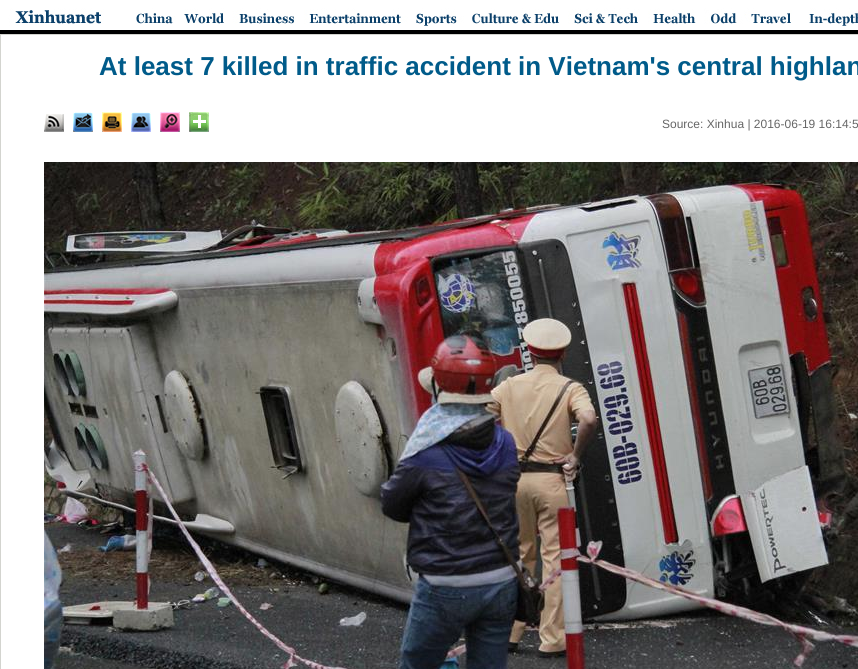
import math
import cairocffi as cairo

surface = cairo.ImageSurface(cairo.FORMAT_RGB24, 858, 669)
cr = cairo.Context(surface)
options = cairo.FontOptions()
options.set_hint_metrics(cairo.HINT_METRICS_OFF)
options.set_hint_style(cairo.HINT_STYLE_NONE)
cr.set_font_options(options)
cr.set_miter_limit(4)


def use_color(code):
    cr.set_source_rgb(*(v / 255 for v in bytes.fromhex(code[-6:])))


def picture(path, x, y, w, h):
    cr.save()
    cr.set_source_surface(cairo.ImageSurface.create_from_png(path), x, y)
    cr.rectangle(x, y, w, h)
    cr.fill()
    cr.restore()


use_color("#000000")
cr.paint()
picture("img1.png", 0, 0, 858, 30)
cr.rectangle(0.5, 34.5, 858, 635)
use_color("#d3d4cf")
cr.set_line_width(1)
cr.stroke()
use_color("#ffffff")
cr.rectangle(1, 35, 857, 634)
cr.fill()
cr.select_font_face("Liberation Sans", cairo.FONT_SLANT_NORMAL, cairo.FONT_WEIGHT_BOLD)
cr.set_font_size(26)
use_color("#005b8a")
cr.move_to(99, 75)
cr.show_text("At least 7 killed in traffic accident in Vietnam's central highlan")
picture("img2.png", 44, 114, 20, 18)
picture("img3.png", 73, 112, 20, 20)
picture("img4.png", 102, 112, 20, 20)
picture("img5.png", 131, 112, 20, 20)
picture("img6.png", 160, 112, 20, 20)
picture("img7.png", 189, 112, 20, 20)
cr.select_font_face("Liberation Sans")
cr.set_font_size(12)
use_color("#666666")
cr.move_to(662, 128)
cr.show_text("Source: Xinhua | 2016-06-19 16:14:5")
picture("img8.png", 44, 162, 814, 507)
surface.write_to_png("result.png")
